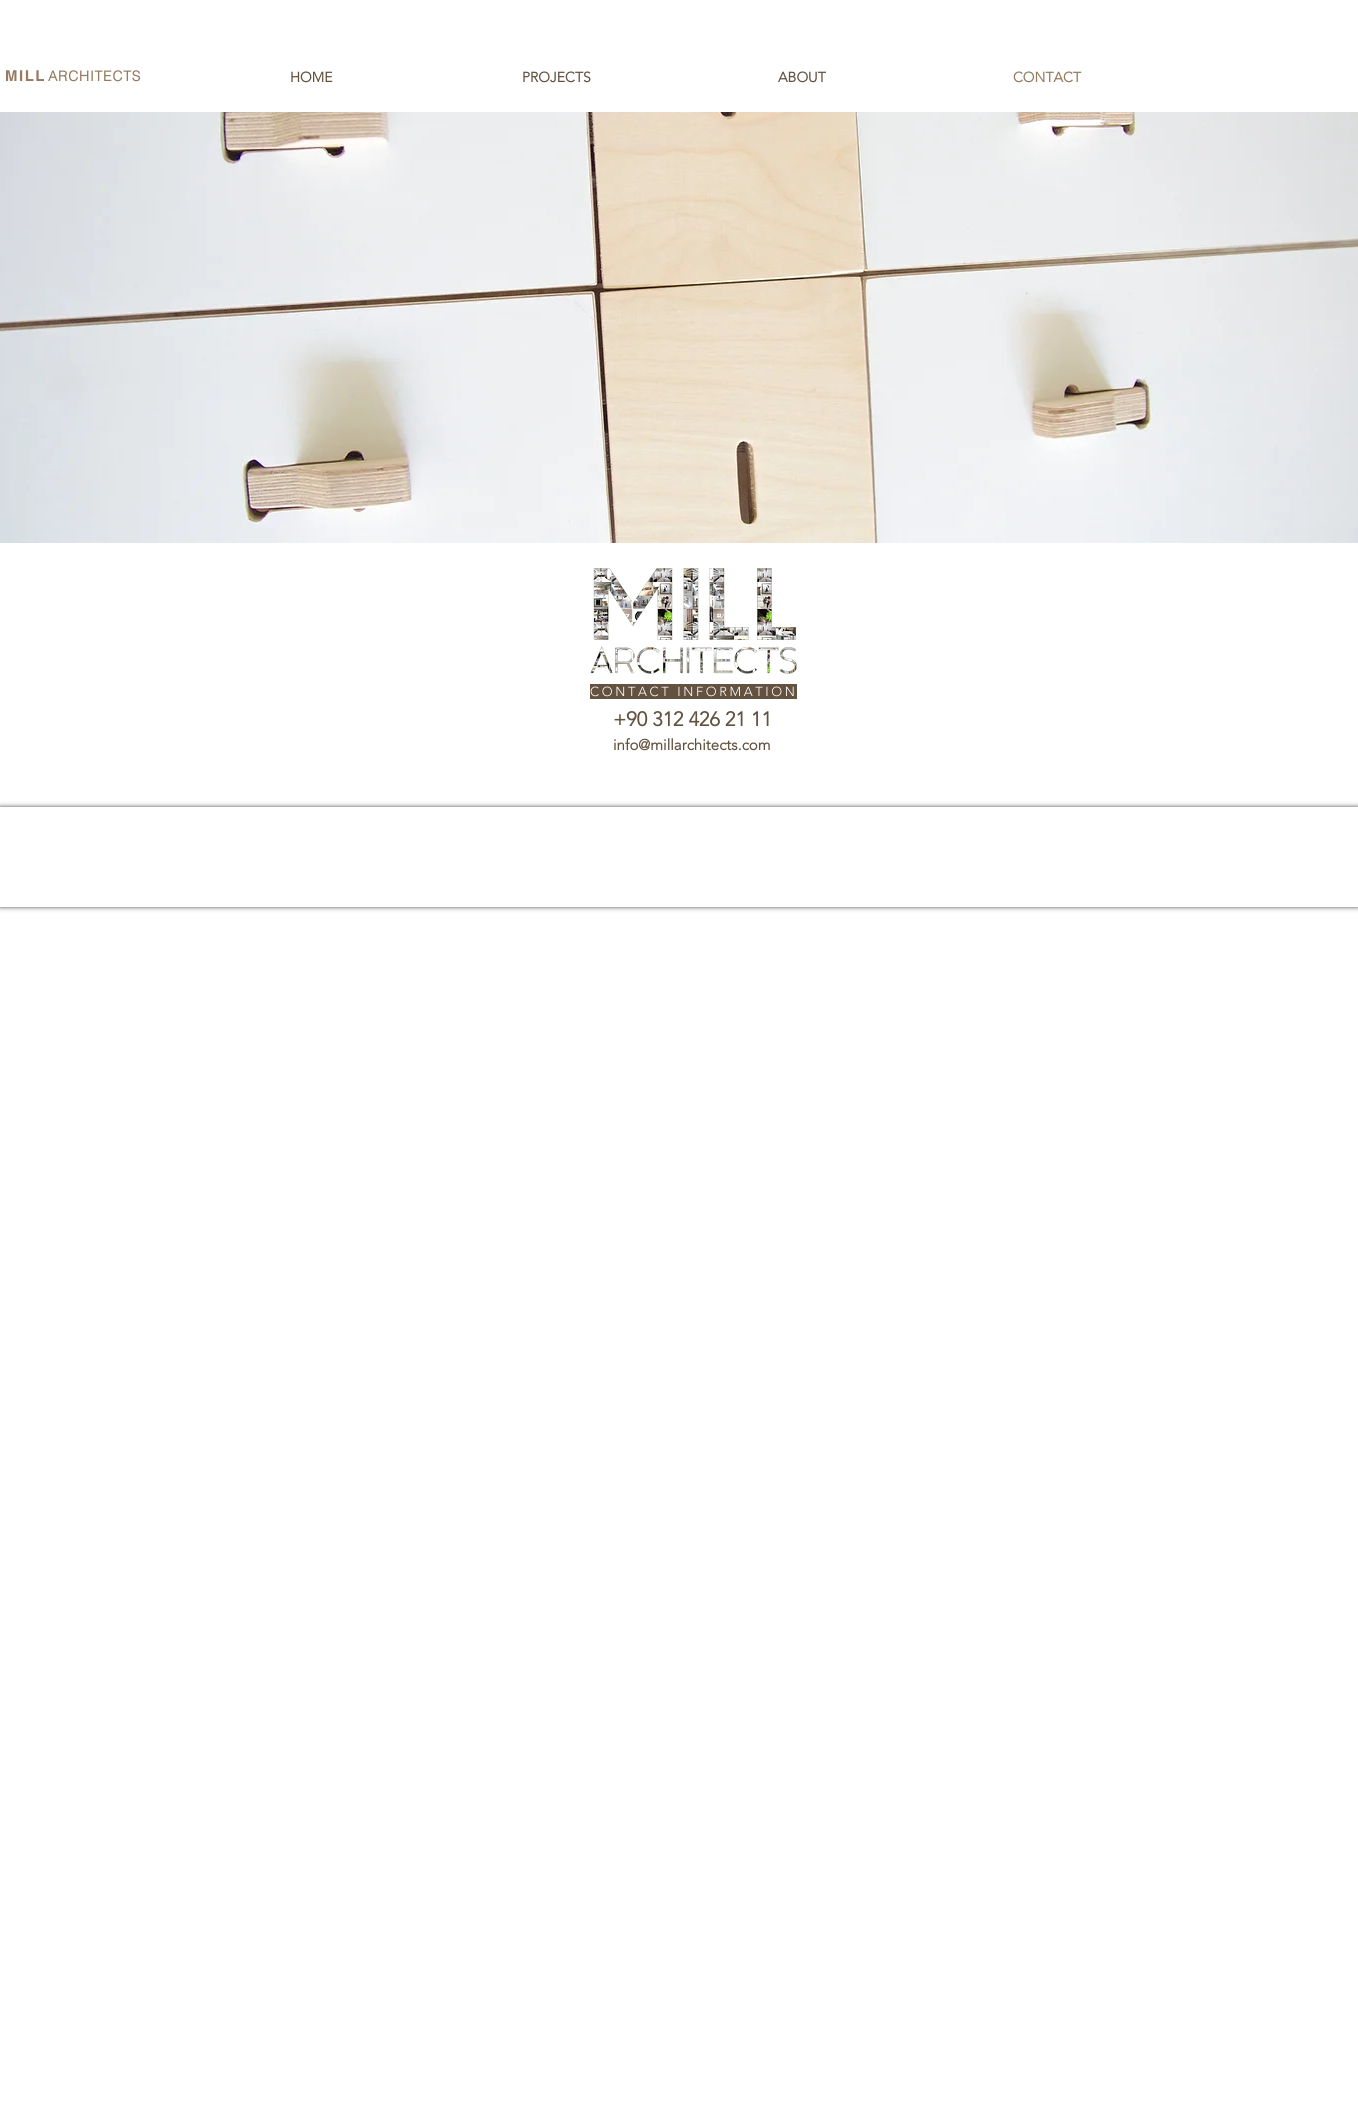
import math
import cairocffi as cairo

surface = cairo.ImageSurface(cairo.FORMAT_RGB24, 1358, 2126)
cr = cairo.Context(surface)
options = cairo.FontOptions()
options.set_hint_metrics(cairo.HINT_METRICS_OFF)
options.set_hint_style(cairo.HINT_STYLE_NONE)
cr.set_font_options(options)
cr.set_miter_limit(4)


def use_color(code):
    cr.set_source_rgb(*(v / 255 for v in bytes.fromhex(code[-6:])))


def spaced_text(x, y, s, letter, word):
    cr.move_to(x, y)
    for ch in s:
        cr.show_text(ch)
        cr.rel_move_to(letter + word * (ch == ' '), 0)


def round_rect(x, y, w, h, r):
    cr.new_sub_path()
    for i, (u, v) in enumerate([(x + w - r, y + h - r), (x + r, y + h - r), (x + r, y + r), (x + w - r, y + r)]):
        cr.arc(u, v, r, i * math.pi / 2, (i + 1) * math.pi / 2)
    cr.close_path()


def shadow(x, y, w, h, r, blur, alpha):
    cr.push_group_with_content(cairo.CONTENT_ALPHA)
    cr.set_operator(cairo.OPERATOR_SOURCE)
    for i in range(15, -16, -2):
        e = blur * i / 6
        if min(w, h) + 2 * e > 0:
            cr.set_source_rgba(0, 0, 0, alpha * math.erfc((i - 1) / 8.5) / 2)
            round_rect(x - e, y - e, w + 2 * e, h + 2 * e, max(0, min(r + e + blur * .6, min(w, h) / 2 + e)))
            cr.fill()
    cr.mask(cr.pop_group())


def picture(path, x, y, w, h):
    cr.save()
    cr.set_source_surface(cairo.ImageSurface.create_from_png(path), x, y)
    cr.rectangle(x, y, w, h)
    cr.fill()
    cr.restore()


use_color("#ffffff")
cr.paint()
cr.select_font_face("helvetica", cairo.FONT_SLANT_NORMAL, cairo.FONT_WEIGHT_BOLD)
cr.set_font_size(15)
use_color("#957b5f")
spaced_text(5, 81, "MILL", 1.5, 0)
cr.select_font_face("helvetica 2", cairo.FONT_SLANT_NORMAL, cairo.FONT_WEIGHT_BOLD)
cr.set_font_size(14)
spaced_text(48, 81, "ARCHITECTS", 0.75, 0)
cr.select_font_face("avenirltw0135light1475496", cairo.FONT_SLANT_NORMAL, cairo.FONT_WEIGHT_BOLD)
use_color("#63523f")
cr.move_to(290, 82)
cr.show_text("HOME")
cr.move_to(522, 82)
cr.show_text("PROJECTS")
cr.move_to(778, 82)
cr.show_text("ABOUT")
use_color("#957b5f")
cr.move_to(1013, 82)
cr.show_text("CONTACT")
picture("img1.png", 0, 112, 1358, 431)
picture("img2.png", 590, 568, 207, 106)
use_color("#63523f")
cr.rectangle(590, 684, 207, 15)
cr.fill()
cr.select_font_face("avenirltw0135light1475496 Light")
cr.set_font_size(13)
use_color("#ffffff")
spaced_text(590, 696, "CONTACT INFORMATION", 2.6, 0)
cr.select_font_face("avenirltw0135light1475496", cairo.FONT_SLANT_NORMAL, cairo.FONT_WEIGHT_BOLD)
cr.set_font_size(20)
use_color("#63523f")
cr.move_to(613, 726)
cr.show_text("+90 312 426 21 11")
cr.set_font_size(15)
cr.move_to(613, 750)
cr.show_text("info@millarchitects.com")
cr.save()
cr.set_fill_rule(cairo.FILL_RULE_EVEN_ODD)
cr.new_path()
cr.move_to(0, 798)
cr.line_to(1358, 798)
cr.line_to(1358, 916)
cr.line_to(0, 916)
cr.close_path()
cr.move_to(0, 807)
cr.line_to(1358, 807)
cr.line_to(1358, 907)
cr.line_to(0, 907)
cr.close_path()
cr.clip()
use_color("#000000")
shadow(0, 807, 1358, 100, 0, 2.5, 0.7)
cr.restore()
surface.write_to_png("result.png")
